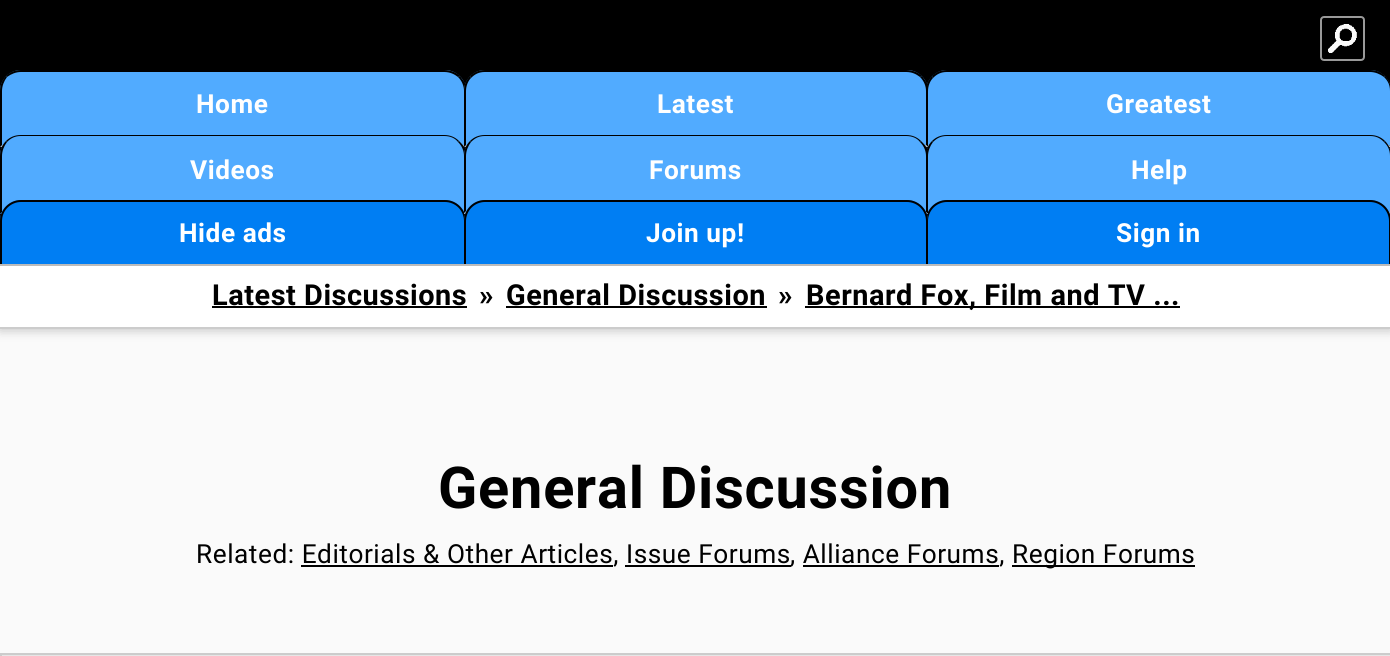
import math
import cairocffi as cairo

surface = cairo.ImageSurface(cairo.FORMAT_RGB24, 1390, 656)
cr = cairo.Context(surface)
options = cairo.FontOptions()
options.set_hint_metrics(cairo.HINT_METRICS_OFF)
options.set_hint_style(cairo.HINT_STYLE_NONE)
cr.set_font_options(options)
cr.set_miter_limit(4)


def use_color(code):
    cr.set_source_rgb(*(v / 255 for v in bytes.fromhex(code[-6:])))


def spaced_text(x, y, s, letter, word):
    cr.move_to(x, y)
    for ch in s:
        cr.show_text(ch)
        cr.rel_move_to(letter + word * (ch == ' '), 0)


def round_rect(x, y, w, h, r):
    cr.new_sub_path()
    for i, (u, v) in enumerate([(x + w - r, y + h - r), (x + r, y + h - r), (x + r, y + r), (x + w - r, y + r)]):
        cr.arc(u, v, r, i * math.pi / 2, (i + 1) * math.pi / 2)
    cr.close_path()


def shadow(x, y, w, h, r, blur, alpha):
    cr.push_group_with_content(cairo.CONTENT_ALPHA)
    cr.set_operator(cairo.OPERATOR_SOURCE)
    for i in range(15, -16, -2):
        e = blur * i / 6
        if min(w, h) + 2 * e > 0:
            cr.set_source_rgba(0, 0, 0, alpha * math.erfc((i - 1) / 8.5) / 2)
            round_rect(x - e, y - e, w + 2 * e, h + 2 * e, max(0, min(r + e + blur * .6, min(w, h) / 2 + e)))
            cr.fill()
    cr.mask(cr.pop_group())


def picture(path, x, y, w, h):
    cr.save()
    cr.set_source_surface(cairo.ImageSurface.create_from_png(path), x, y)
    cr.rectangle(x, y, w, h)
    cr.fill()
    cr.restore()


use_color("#fafafa")
cr.paint()
use_color("#000000")
cr.rectangle(0, 0, 1390, 221)
cr.fill()
picture("img1.png", 1328, 24, 29, 29)
round_rect(1321, 17, 43, 43, 3)
use_color("#999999")
cr.stroke()
use_color("#51abff")
cr.new_path()
cr.move_to(21, 70)
cr.line_to(445, 70)
cr.curve_to(456.5, 70, 466, 79.5, 466, 91)
cr.line_to(466, 147)
cr.line_to(0, 147)
cr.line_to(0, 91)
cr.curve_to(0, 79.5, 9.5, 70, 21, 70)
cr.close_path()
cr.fill()
use_color("#000000")
cr.new_path()
cr.move_to(21, 70)
cr.curve_to(15, 70, 10, 72, 6, 76)
cr.line_to(7, 77)
cr.curve_to(11, 74, 16, 72, 21, 72)
cr.line_to(444, 72)
cr.curve_to(450, 72, 454, 74, 458, 77)
cr.line_to(460, 76)
cr.curve_to(456, 72, 450, 70, 444, 70)
cr.close_path()
cr.fill()
cr.new_path()
cr.move_to(466, 86)
cr.line_to(466, 147)
cr.line_to(464, 145)
cr.line_to(464, 91)
cr.curve_to(464, 86, 462, 81, 458, 77)
cr.line_to(460, 76)
cr.curve_to(462, 79, 465, 82, 466, 86)
cr.close_path()
cr.fill()
use_color("#bbbbbb")
cr.new_path()
cr.move_to(466, 147)
cr.line_to(464, 145)
cr.line_to(2, 145)
cr.line_to(0, 147)
cr.close_path()
cr.fill()
use_color("#000000")
cr.new_path()
cr.move_to(0, 147)
cr.line_to(2, 145)
cr.line_to(2, 91)
cr.curve_to(2, 86, 4, 81, 7, 77)
cr.line_to(6, 76)
cr.curve_to(2, 80, 0, 85, 0, 91)
cr.close_path()
cr.fill()
cr.select_font_face("Roboto", cairo.FONT_SLANT_NORMAL, cairo.FONT_WEIGHT_BOLD)
cr.set_font_size(26.25)
use_color("#ffffff")
spaced_text(196, 113, "Home", 0.53, 0)
use_color("#51abff")
cr.new_path()
cr.move_to(947, 70)
cr.line_to(1370, 70)
cr.curve_to(1381.5, 70, 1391, 79.5, 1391, 91)
cr.line_to(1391, 147)
cr.line_to(926, 147)
cr.line_to(926, 91)
cr.curve_to(926, 79.5, 935.5, 70, 947, 70)
cr.close_path()
cr.fill()
use_color("#000000")
cr.new_path()
cr.move_to(947, 70)
cr.curve_to(941, 70, 936, 72, 932, 76)
cr.line_to(933, 78)
cr.curve_to(937, 74, 941, 72, 947, 72)
cr.line_to(1370, 72)
cr.curve_to(1375, 72, 1380, 74, 1384, 77)
cr.line_to(1385, 76)
cr.curve_to(1381, 72, 1376, 70, 1370, 70)
cr.close_path()
cr.fill()
cr.new_path()
cr.move_to(1385, 76)
cr.curve_to(1389, 80, 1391, 85, 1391, 91)
cr.line_to(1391, 147)
cr.line_to(1389, 145)
cr.line_to(1390, 145)
cr.line_to(1390, 91)
cr.curve_to(1390, 85, 1388, 81, 1384, 77)
cr.close_path()
cr.fill()
use_color("#bbbbbb")
cr.new_path()
cr.move_to(926, 147)
cr.line_to(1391, 147)
cr.line_to(1389, 145)
cr.line_to(928, 145)
cr.close_path()
cr.fill()
use_color("#000000")
cr.new_path()
cr.move_to(932, 76)
cr.curve_to(928, 80, 926, 85, 926, 91)
cr.line_to(926, 147)
cr.line_to(928, 145)
cr.line_to(928, 91)
cr.curve_to(928, 86, 930, 81, 933, 78)
cr.close_path()
cr.fill()
use_color("#51abff")
cr.new_path()
cr.move_to(21, 135)
cr.line_to(445, 135)
cr.curve_to(456.5, 135, 466, 144.5, 466, 156)
cr.line_to(466, 214)
cr.line_to(0, 214)
cr.line_to(0, 156)
cr.curve_to(0, 144.5, 9.5, 135, 21, 135)
cr.close_path()
cr.fill()
use_color("#000000")
cr.new_path()
cr.move_to(21, 135)
cr.curve_to(15, 135, 10, 137, 6, 141)
cr.line_to(7, 142)
cr.curve_to(11, 138, 15, 136, 21, 136)
cr.line_to(444, 136)
cr.curve_to(450, 136, 455, 138, 458, 142)
cr.line_to(459, 141)
cr.curve_to(455, 137, 450, 135, 444, 135)
cr.close_path()
cr.fill()
cr.new_path()
cr.move_to(459, 141)
cr.curve_to(462, 144, 465, 147, 466, 151)
cr.line_to(466, 214)
cr.line_to(464, 212)
cr.line_to(464, 156)
cr.curve_to(464, 151, 462, 146, 458, 142)
cr.close_path()
cr.fill()
use_color("#51abff")
cr.new_path()
cr.move_to(947, 135)
cr.line_to(1370, 135)
cr.curve_to(1381.5, 135, 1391, 144.5, 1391, 156)
cr.line_to(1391, 214)
cr.line_to(926, 214)
cr.line_to(926, 156)
cr.curve_to(926, 144.5, 935.5, 135, 947, 135)
cr.close_path()
cr.fill()
use_color("#000000")
cr.new_path()
cr.move_to(947, 135)
cr.curve_to(941, 135, 936, 137, 932, 141)
cr.line_to(933, 142)
cr.curve_to(937, 138, 941, 136, 947, 136)
cr.line_to(1370, 136)
cr.curve_to(1376, 136, 1380, 138, 1384, 142)
cr.line_to(1385, 141)
cr.curve_to(1381, 137, 1376, 135, 1370, 135)
cr.close_path()
cr.fill()
use_color("#bbbbbb")
cr.new_path()
cr.move_to(926, 214)
cr.line_to(928, 211)
cr.line_to(928, 212)
cr.line_to(1390, 212)
cr.line_to(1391, 213)
cr.close_path()
cr.fill()
use_color("#000000")
cr.new_path()
cr.move_to(932, 141)
cr.curve_to(928, 145, 926, 150, 926, 156)
cr.line_to(926, 213)
cr.line_to(928, 211)
cr.line_to(928, 156)
cr.curve_to(928, 151, 930, 146, 933, 142)
cr.close_path()
cr.fill()
use_color("#51abff")
cr.new_path()
cr.move_to(485, 70)
cr.line_to(907, 70)
cr.curve_to(918.5, 70, 928, 79.5, 928, 91)
cr.line_to(928, 147)
cr.line_to(464, 147)
cr.line_to(464, 91)
cr.curve_to(464, 79.5, 473.5, 70, 485, 70)
cr.close_path()
cr.fill()
use_color("#000000")
cr.new_path()
cr.move_to(485, 70)
cr.curve_to(479, 70, 474, 72, 470, 76)
cr.line_to(471, 78)
cr.curve_to(475, 74, 479, 72, 485, 72)
cr.line_to(906, 72)
cr.curve_to(912, 72, 916, 74, 920, 77)
cr.line_to(922, 76)
cr.curve_to(918, 72, 912, 70, 906, 70)
cr.close_path()
cr.fill()
cr.new_path()
cr.move_to(928, 86)
cr.line_to(928, 147)
cr.line_to(926, 145)
cr.line_to(926, 91)
cr.curve_to(926, 86, 924, 81, 920, 77)
cr.line_to(922, 76)
cr.curve_to(924, 79, 927, 82, 928, 86)
cr.close_path()
cr.fill()
use_color("#bbbbbb")
cr.new_path()
cr.move_to(928, 147)
cr.line_to(926, 145)
cr.line_to(466, 145)
cr.line_to(464, 147)
cr.close_path()
cr.fill()
use_color("#000000")
cr.new_path()
cr.move_to(470, 76)
cr.curve_to(466, 80, 464, 85, 464, 91)
cr.line_to(464, 147)
cr.line_to(466, 145)
cr.line_to(466, 91)
cr.curve_to(466, 86, 468, 81, 471, 78)
cr.close_path()
cr.fill()
use_color("#ffffff")
spaced_text(657, 113, "Latest", 0.53, 0)
spaced_text(1106, 113, "Greatest", 0.53, 0)
use_color("#000000")
cr.new_path()
cr.move_to(0, 214)
cr.line_to(2, 212)
cr.line_to(2, 156)
cr.curve_to(2, 151, 4, 146, 7, 142)
cr.line_to(6, 141)
cr.curve_to(2, 145, 0, 150, 0, 156)
cr.close_path()
cr.fill()
use_color("#ffffff")
spaced_text(190, 179, "Videos", 0.53, 0)
use_color("#000000")
shadow(0, 266, 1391, 65, 0, 5, 0.2)
use_color("#007ef3")
cr.new_path()
cr.move_to(21, 200)
cr.line_to(445, 200)
cr.curve_to(456.5, 200, 466, 209.5, 466, 221)
cr.line_to(466, 264)
cr.line_to(0, 264)
cr.line_to(0, 221)
cr.curve_to(0, 209.5, 9.5, 200, 21, 200)
cr.close_path()
cr.fill()
use_color("#ffffff")
cr.rectangle(0, 266, 1390, 61)
cr.fill()
use_color("#bbbbbb")
cr.rectangle(0, 264, 1390, 2)
cr.fill()
cr.save()
cr.rectangle(0, 0, 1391, 264)
cr.clip()
cr.new_path()
cr.move_to(21, 201)
cr.line_to(445, 201)
cr.curve_to(456, 201, 465, 210, 465, 221)
cr.line_to(465, 276)
cr.line_to(1, 276)
cr.line_to(1, 221)
cr.curve_to(1, 210, 10, 201, 21, 201)
cr.close_path()
use_color("#000000")
cr.stroke()
cr.restore()
use_color("#007ef3")
cr.new_path()
cr.move_to(947, 200)
cr.line_to(1370, 200)
cr.curve_to(1381.5, 200, 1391, 209.5, 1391, 221)
cr.line_to(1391, 264)
cr.line_to(926, 264)
cr.line_to(926, 221)
cr.curve_to(926, 209.5, 935.5, 200, 947, 200)
cr.close_path()
cr.fill()
cr.save()
cr.rectangle(0, 0, 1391, 264)
cr.clip()
cr.new_path()
cr.move_to(947, 201)
cr.line_to(1370, 201)
cr.curve_to(1381, 201, 1390, 210, 1390, 221)
cr.line_to(1390, 276)
cr.line_to(927, 276)
cr.line_to(927, 221)
cr.curve_to(927, 210, 936, 201, 947, 201)
cr.close_path()
use_color("#000000")
cr.stroke()
cr.restore()
use_color("#51abff")
cr.new_path()
cr.move_to(485, 135)
cr.line_to(907, 135)
cr.curve_to(918.5, 135, 928, 144.5, 928, 156)
cr.line_to(928, 214)
cr.line_to(464, 214)
cr.line_to(464, 156)
cr.curve_to(464, 144.5, 473.5, 135, 485, 135)
cr.close_path()
cr.fill()
use_color("#000000")
cr.new_path()
cr.move_to(485, 135)
cr.curve_to(479, 135, 474, 137, 470, 141)
cr.line_to(471, 142)
cr.curve_to(475, 138, 479, 136, 485, 136)
cr.line_to(906, 136)
cr.curve_to(912, 136, 917, 138, 920, 142)
cr.line_to(921, 141)
cr.curve_to(917, 137, 912, 135, 906, 135)
cr.close_path()
cr.fill()
cr.new_path()
cr.move_to(921, 141)
cr.curve_to(924, 144, 927, 147, 928, 151)
cr.line_to(928, 214)
cr.line_to(926, 212)
cr.line_to(926, 156)
cr.curve_to(926, 151, 924, 146, 920, 142)
cr.close_path()
cr.fill()
use_color("#bbbbbb")
cr.new_path()
cr.move_to(928, 214)
cr.line_to(464, 214)
cr.line_to(466, 211)
cr.line_to(466, 212)
cr.line_to(926, 212)
cr.close_path()
cr.fill()
use_color("#000000")
cr.new_path()
cr.move_to(470, 141)
cr.curve_to(466, 145, 464, 150, 464, 156)
cr.line_to(464, 213)
cr.line_to(466, 211)
cr.line_to(466, 156)
cr.curve_to(466, 151, 468, 146, 471, 142)
cr.close_path()
cr.fill()
use_color("#ffffff")
spaced_text(649, 179, "Forums", 0.53, 0)
use_color("#000000")
cr.new_path()
cr.move_to(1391, 213)
cr.line_to(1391, 156)
cr.curve_to(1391, 150, 1389, 145, 1385, 141)
cr.line_to(1384, 142)
cr.curve_to(1388, 146, 1390, 150, 1390, 156)
cr.line_to(1390, 212)
cr.close_path()
cr.fill()
use_color("#ffffff")
spaced_text(1131, 179, "Help", 0.53, 0)
spaced_text(179, 242, "Hide ads", 0.53, 0)
use_color("#007ef3")
cr.new_path()
cr.move_to(485, 200)
cr.line_to(907, 200)
cr.curve_to(918.5, 200, 928, 209.5, 928, 221)
cr.line_to(928, 264)
cr.line_to(464, 264)
cr.line_to(464, 221)
cr.curve_to(464, 209.5, 473.5, 200, 485, 200)
cr.close_path()
cr.fill()
cr.save()
cr.rectangle(0, 0, 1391, 264)
cr.clip()
cr.new_path()
cr.move_to(485, 201)
cr.line_to(907, 201)
cr.curve_to(918, 201, 927, 210, 927, 221)
cr.line_to(927, 276)
cr.line_to(465, 276)
cr.line_to(465, 221)
cr.curve_to(465, 210, 474, 201, 485, 201)
cr.close_path()
use_color("#000000")
cr.stroke()
cr.restore()
use_color("#ffffff")
spaced_text(646, 242, "Join up!", 0.53, 0)
spaced_text(1116, 242, "Sign in", 0.53, 0)
use_color("#cccccc")
cr.rectangle(0, 327, 1390, 2)
cr.fill()
cr.set_font_size(28.9)
use_color("#000000")
spaced_text(212, 305, "Latest Discussions", 0.53, 0)
cr.rectangle(212, 306, 255, 2)
cr.fill()
spaced_text(479, 305, "»", 0.53, 0)
spaced_text(506, 305, "General Discussion", 0.53, 0)
cr.rectangle(506, 306, 261, 2)
cr.fill()
spaced_text(778, 305, "»", 0.53, 0)
cr.rectangle(805, 306, 375, 2)
cr.fill()
spaced_text(806, 305, "Bernard Fox, Film and TV ...", 0.53, 0)
cr.set_font_size(57.75)
spaced_text(438, 508, "General Discussion", 0.75, 0)
cr.select_font_face("Roboto")
cr.set_font_size(26.25)
spaced_text(196, 563, "Related: Editorials & Other Articles, Issue Forums", 0.53, 0)
cr.rectangle(625, 565, 166, 2)
cr.fill()
spaced_text(790, 563, ", Alliance Forums,", 0.53, 0)
cr.rectangle(1012, 565, 183, 2)
cr.fill()
spaced_text(1012, 563, "Region Forums", 0.53, 0)
cr.rectangle(301, 565, 312, 2)
cr.fill()
cr.rectangle(803, 565, 196, 2)
cr.fill()
use_color("#e6e6e6")
cr.rectangle(0, 655, 1390, 1)
cr.fill()
use_color("#cccccc")
cr.rectangle(0, 653, 1390, 2)
cr.fill()
cr.rectangle(0, 653, 2, 3)
cr.fill()
surface.write_to_png("result.png")
